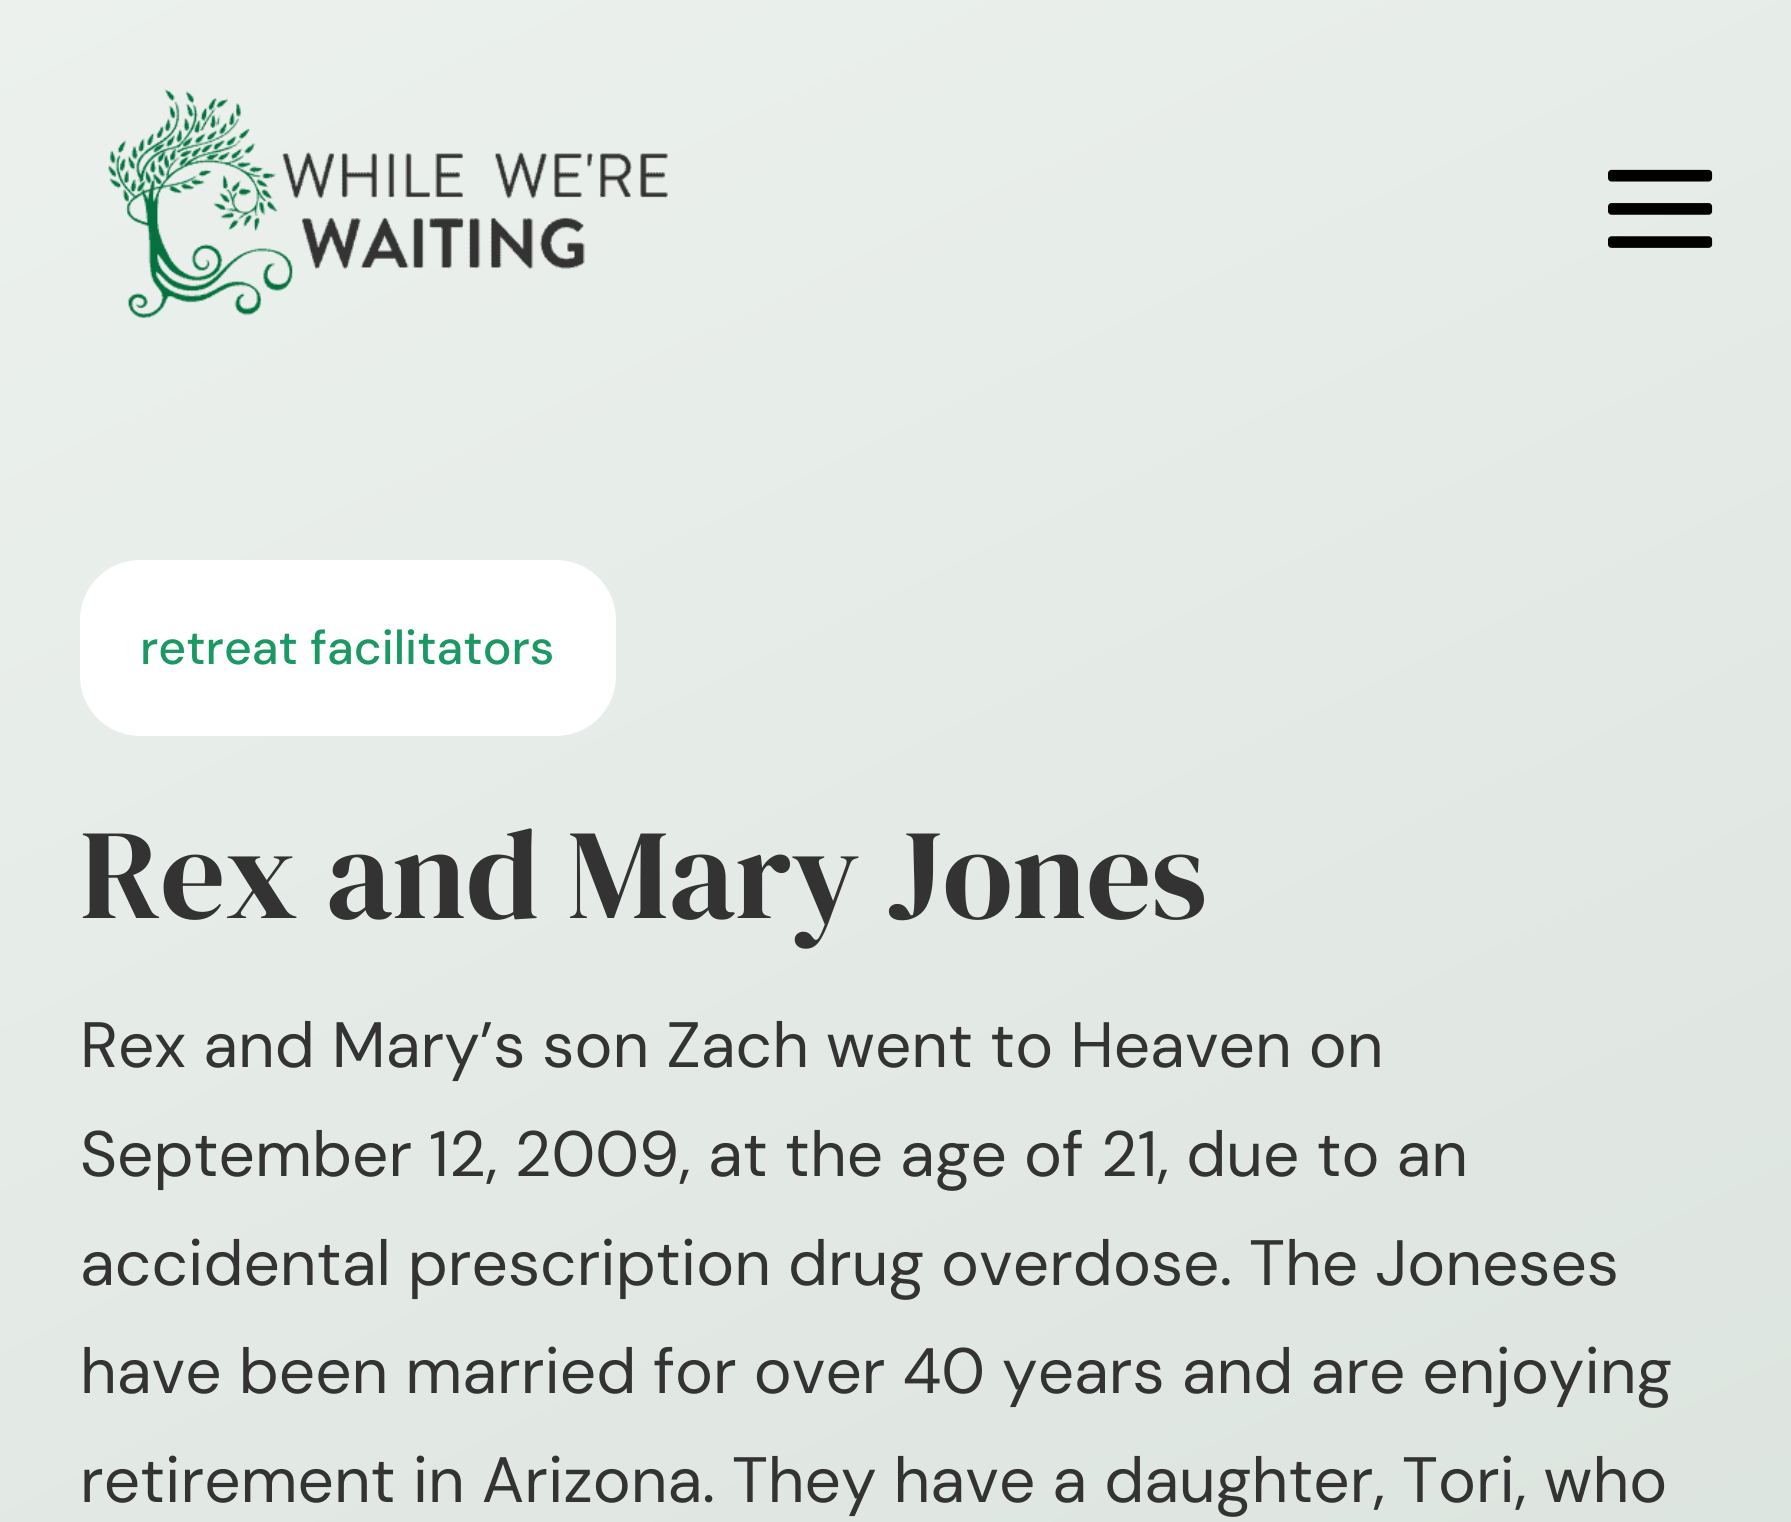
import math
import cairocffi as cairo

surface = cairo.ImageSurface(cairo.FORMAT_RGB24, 1791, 1522)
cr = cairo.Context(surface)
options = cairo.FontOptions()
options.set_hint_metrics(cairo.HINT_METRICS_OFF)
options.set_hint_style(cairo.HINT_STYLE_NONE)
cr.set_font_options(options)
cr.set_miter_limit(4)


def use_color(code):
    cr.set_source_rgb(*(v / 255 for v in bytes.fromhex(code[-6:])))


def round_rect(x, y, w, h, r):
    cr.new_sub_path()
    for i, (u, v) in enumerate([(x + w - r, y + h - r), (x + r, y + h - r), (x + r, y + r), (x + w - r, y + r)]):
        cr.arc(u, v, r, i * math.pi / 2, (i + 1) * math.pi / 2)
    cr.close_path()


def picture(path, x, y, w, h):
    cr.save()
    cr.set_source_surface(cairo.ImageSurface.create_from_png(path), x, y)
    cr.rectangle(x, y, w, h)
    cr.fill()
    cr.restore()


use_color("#ffffff")
cr.paint()
gradient = cairo.LinearGradient(-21, 10, 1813, 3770)
gradient.add_color_stop_rgba(0, 0.925, 0.945, 0.929, 1)
gradient.add_color_stop_rgba(1, 0.812, 0.851, 0.827, 1)
cr.set_source(gradient)
cr.rectangle(0, 0, 1791, 1522)
cr.fill()
picture("img1.png", 108, 88, 560, 230)
picture("img2.png", 1608, 169, 105, 79)
use_color("#ffffff")
round_rect(80, 560, 536, 176, 60)
cr.fill()
cr.select_font_face("DM Sans Medium")
cr.set_font_size(48)
use_color("#1b9864")
cr.move_to(140, 664)
cr.show_text("retreat facilitators")
cr.select_font_face("DM Serif Display")
cr.set_font_size(128)
use_color("#333333")
cr.move_to(80, 918)
cr.show_text("Rex and Mary Jones")
cr.select_font_face("DM Sans")
cr.set_font_size(64)
cr.move_to(80, 1067)
cr.show_text("Rex and Mary’s son Zach went to Heaven on")
cr.move_to(80, 1176)
cr.show_text("September 12, 2009, at the age of 21, due to an")
cr.move_to(80, 1285)
cr.show_text("accidental prescription drug overdose. The Joneses")
cr.move_to(80, 1393)
cr.show_text("have been married for over 40 years and are enjoying")
cr.move_to(80, 1502)
cr.show_text("retirement in Arizona. They have a daughter, Tori, who")
surface.write_to_png("result.png")
